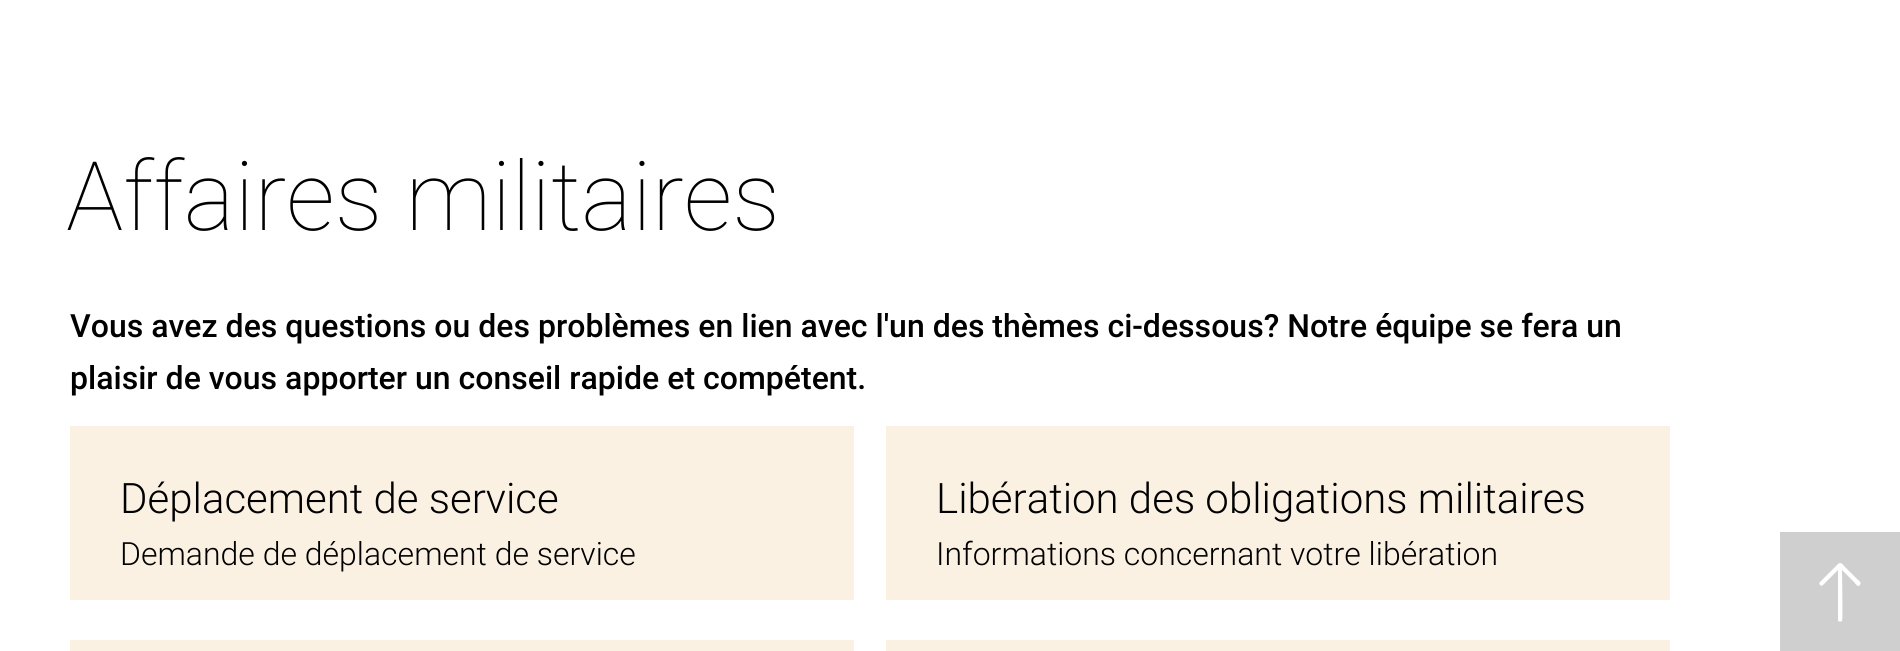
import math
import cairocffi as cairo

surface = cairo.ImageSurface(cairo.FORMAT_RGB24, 1900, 651)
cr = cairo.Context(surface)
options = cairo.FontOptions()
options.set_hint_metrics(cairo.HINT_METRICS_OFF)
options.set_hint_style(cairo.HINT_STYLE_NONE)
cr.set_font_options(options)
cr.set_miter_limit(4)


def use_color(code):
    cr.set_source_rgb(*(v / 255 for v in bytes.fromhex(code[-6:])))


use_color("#ffffff")
cr.paint()
cr.select_font_face("Roboto Thin")
cr.set_font_size(96)
use_color("#000000")
cr.move_to(66, 230)
cr.show_text("Affaires militaires")
cr.select_font_face("Roboto Medium")
cr.set_font_size(32)
cr.move_to(70, 337)
cr.show_text("Vous avez des questions ou des problèmes en lien avec l'un des thèmes ci-dessous? Notre équipe se fera un")
cr.move_to(70, 389)
cr.show_text("plaisir de vous apporter un conseil rapide et compétent.")
use_color("#faf1e3")
cr.rectangle(70, 426, 784, 174)
cr.fill()
cr.select_font_face("Roboto Light")
cr.set_font_size(42)
use_color("#000000")
cr.move_to(120, 513)
cr.show_text("Déplacement de service")
cr.set_font_size(32)
cr.move_to(120, 565)
cr.show_text("Demande de déplacement de service")
use_color("#faf1e3")
cr.rectangle(886, 426, 784, 174)
cr.fill()
cr.set_font_size(42)
use_color("#000000")
cr.move_to(936, 513)
cr.show_text("Libération des obligations militaires")
cr.set_font_size(32)
cr.move_to(936, 565)
cr.show_text("Informations concernant votre libération")
use_color("#faf1e3")
cr.rectangle(70, 640, 784, 11)
cr.fill()
cr.rectangle(886, 640, 784, 11)
cr.fill()
use_color("#cfcfcf")
cr.rectangle(1780, 532, 120, 119)
cr.fill()
use_color("#ffffff")
cr.new_path()
cr.move_to(1820, 582)
cr.curve_to(1819, 583, 1819, 584, 1820, 585)
cr.curve_to(1821, 586, 1822, 586, 1823, 585)
cr.line_to(1838, 570)
cr.line_to(1838, 620)
cr.curve_to(1838, 622, 1841, 622, 1842, 621)
cr.curve_to(1843, 619, 1842, 576, 1842, 570)
cr.line_to(1855, 583)
cr.curve_to(1855, 584, 1857, 586, 1859, 586)
cr.line_to(1860, 585)
cr.curve_to(1862, 582, 1858, 580, 1857, 579)
cr.line_to(1845, 567)
cr.curve_to(1844, 566, 1841, 561, 1838, 564)
cr.close_path()
cr.fill()
surface.write_to_png("result.png")
